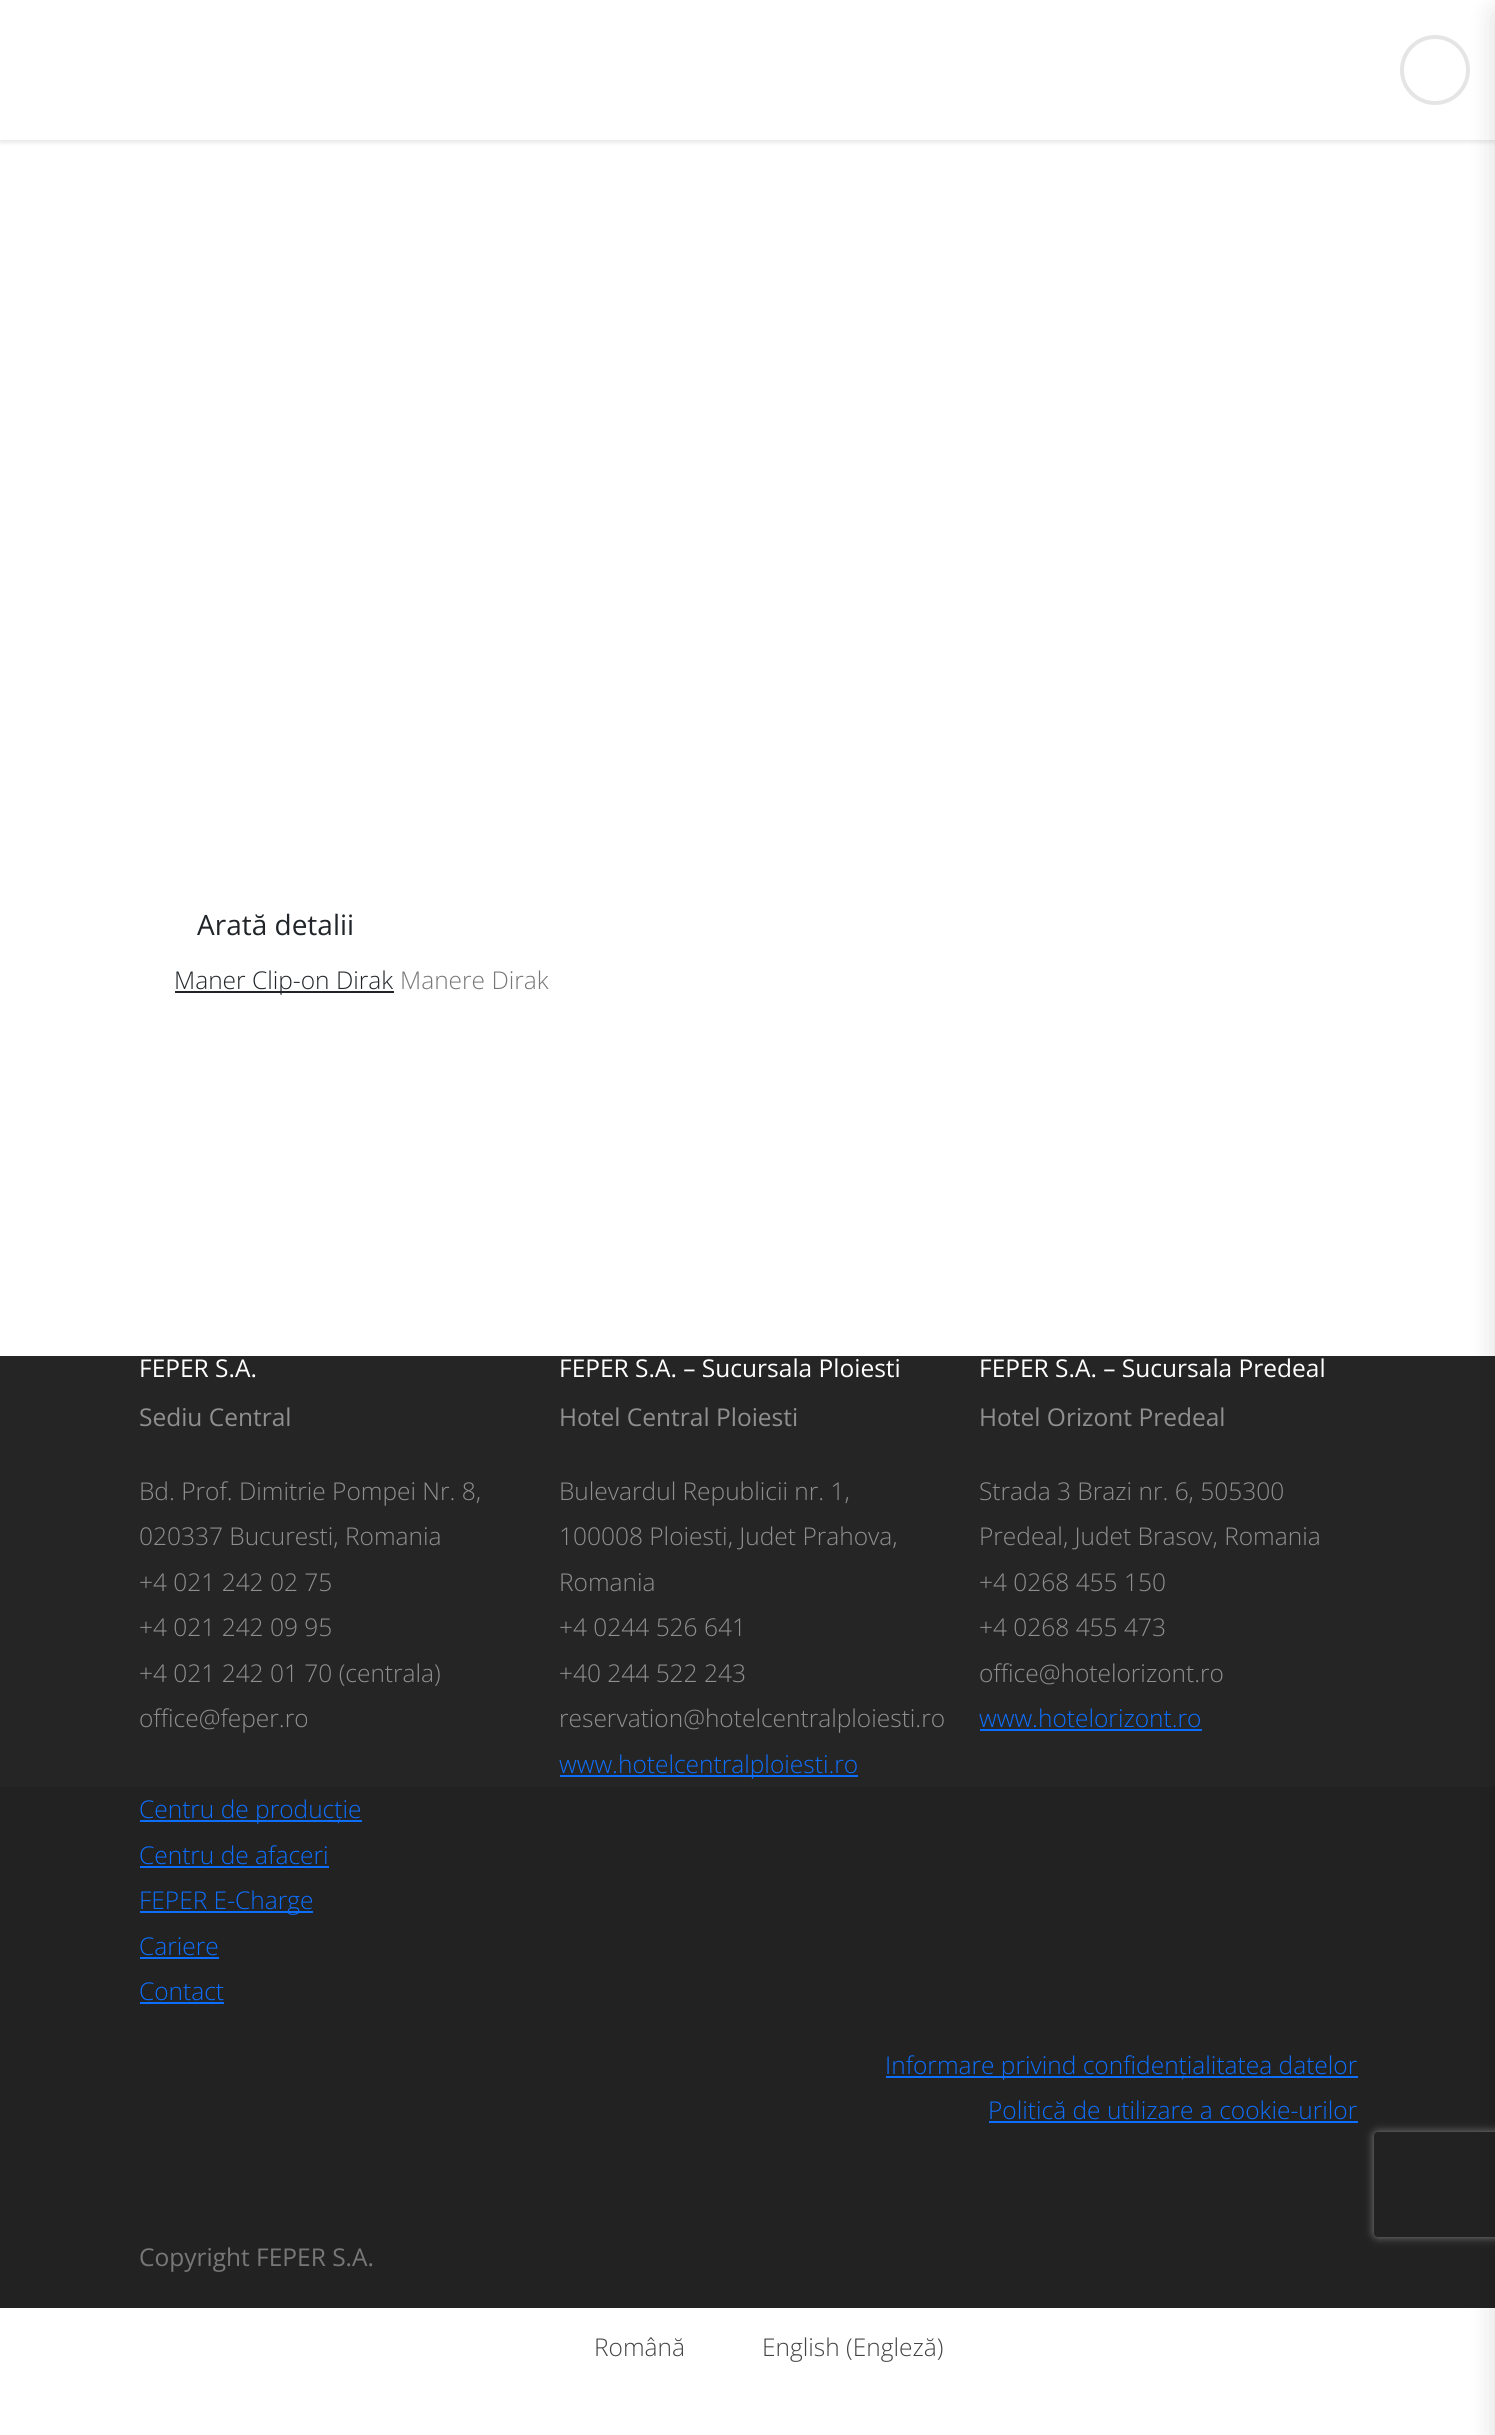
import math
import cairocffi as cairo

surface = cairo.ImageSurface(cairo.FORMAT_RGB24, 1495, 2435)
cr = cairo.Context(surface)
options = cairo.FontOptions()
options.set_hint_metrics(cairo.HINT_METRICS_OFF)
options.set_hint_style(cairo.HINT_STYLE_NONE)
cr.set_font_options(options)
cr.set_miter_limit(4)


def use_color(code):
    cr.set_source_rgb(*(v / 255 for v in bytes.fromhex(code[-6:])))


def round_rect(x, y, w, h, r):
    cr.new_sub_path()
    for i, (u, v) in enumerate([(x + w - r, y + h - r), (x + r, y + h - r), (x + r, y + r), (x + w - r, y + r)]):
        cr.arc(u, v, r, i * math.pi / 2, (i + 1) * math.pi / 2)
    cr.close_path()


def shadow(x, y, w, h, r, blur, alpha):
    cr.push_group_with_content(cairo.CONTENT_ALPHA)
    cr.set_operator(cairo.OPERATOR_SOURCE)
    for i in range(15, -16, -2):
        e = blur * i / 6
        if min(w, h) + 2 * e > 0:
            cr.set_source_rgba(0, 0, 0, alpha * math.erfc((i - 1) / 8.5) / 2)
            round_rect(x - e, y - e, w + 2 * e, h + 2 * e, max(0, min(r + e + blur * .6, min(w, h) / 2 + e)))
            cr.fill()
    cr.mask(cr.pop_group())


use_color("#ffffff")
cr.paint()
use_color("#000000")
shadow(0, 2, 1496, 140, 0, 2.5, 0.11)
use_color("#ffffff")
cr.rectangle(0, 0, 1495, 140)
cr.fill()
cr.arc(1435, 70, 33, 0, 2 * math.pi)
use_color("#e5e5e5")
cr.set_line_width(4)
cr.stroke()
cr.select_font_face("Open Sans")
cr.set_font_size(28)
use_color("#212529")
cr.move_to(197, 935)
cr.show_text("Arată detalii")
cr.rectangle(175, 991, 219, 2)
cr.fill()
cr.select_font_face("Open Sans Light")
cr.set_font_size(24.5)
cr.move_to(174, 989)
cr.show_text("Maner Clip-on Dirak")
use_color("#777777")
cr.move_to(400, 989)
cr.show_text("Manere Dirak")
use_color("#252525")
cr.rectangle(0, 1356, 1495, 431)
cr.fill()
cr.select_font_face("Open Sans")
use_color("#ffffff")
cr.move_to(139, 1377)
cr.show_text("FEPER S.A.")
use_color("#8f8f8f")
cr.move_to(139, 1426)
cr.show_text("Sediu Central")
cr.select_font_face("Open Sans Light")
cr.move_to(139, 1500)
cr.show_text("Bd. Prof. Dimitrie Pompei Nr. 8,")
cr.move_to(139, 1545)
cr.show_text("020337 Bucuresti, Romania")
cr.move_to(139, 1591)
cr.show_text("+4 021 242 02 75")
cr.move_to(139, 1636)
cr.show_text("+4 021 242 09 95")
cr.move_to(139, 1682)
cr.show_text("+4 021 242 01 70 (centrala)")
cr.move_to(139, 1727)
cr.show_text("office@feper.ro")
cr.select_font_face("Open Sans")
use_color("#ffffff")
cr.move_to(559, 1377)
cr.show_text("FEPER S.A. – Sucursala Ploiesti")
use_color("#8f8f8f")
cr.move_to(559, 1426)
cr.show_text("Hotel Central Ploiesti")
cr.select_font_face("Open Sans Light")
cr.move_to(559, 1500)
cr.show_text("Bulevardul Republicii nr. 1,")
cr.move_to(559, 1545)
cr.show_text("100008 Ploiesti, Judet Prahova,")
cr.move_to(559, 1591)
cr.show_text("Romania")
cr.move_to(559, 1636)
cr.show_text("+4 0244 526 641")
cr.move_to(559, 1682)
cr.show_text("+40 244 522 243")
cr.move_to(559, 1727)
cr.show_text("reservation@hotelcentralploiesti.ro")
use_color("#0d6efd")
cr.rectangle(560, 1775, 298, 2)
cr.fill()
cr.move_to(559, 1773)
cr.show_text("www.hotelcentralploiesti.ro")
cr.select_font_face("Open Sans")
use_color("#ffffff")
cr.move_to(979, 1377)
cr.show_text("FEPER S.A. – Sucursala Predeal")
use_color("#8f8f8f")
cr.move_to(979, 1426)
cr.show_text("Hotel Orizont Predeal")
cr.select_font_face("Open Sans Light")
cr.move_to(979, 1500)
cr.show_text("Strada 3 Brazi nr. 6, 505300")
cr.move_to(979, 1545)
cr.show_text("Predeal, Judet Brasov, Romania")
cr.move_to(979, 1591)
cr.show_text("+4 0268 455 150")
cr.move_to(979, 1636)
cr.show_text("+4 0268 455 473")
cr.move_to(979, 1682)
cr.show_text("office@hotelorizont.ro")
use_color("#0d6efd")
cr.move_to(979, 1727)
cr.show_text("www.hotelorizont.ro")
cr.rectangle(980, 1729, 222, 2)
cr.fill()
use_color("#222222")
cr.rectangle(0, 1787, 1495, 521)
cr.fill()
use_color("#0d6efd")
cr.rectangle(140, 1820, 222, 2)
cr.fill()
cr.move_to(139, 1818)
cr.show_text("Centru de producție")
cr.move_to(139, 1864)
cr.show_text("Centru de afaceri")
cr.rectangle(140, 1866, 189, 2)
cr.fill()
cr.rectangle(140, 1911, 173, 2)
cr.fill()
cr.move_to(139, 1909)
cr.show_text("FEPER E-Charge")
cr.move_to(139, 1955)
cr.show_text("Cariere")
cr.rectangle(140, 1957, 79, 2)
cr.fill()
cr.move_to(139, 2000)
cr.show_text("Contact")
cr.rectangle(140, 2002, 84, 2)
cr.fill()
cr.rectangle(886, 2076, 472, 2)
cr.fill()
cr.move_to(885, 2074)
cr.show_text("Informare privind confidențialitatea datelor")
cr.move_to(988, 2119)
cr.show_text("Politică de utilizare a cookie-urilor")
cr.rectangle(989, 2121, 369, 2)
cr.fill()
cr.select_font_face("Open Sans")
use_color("#777777")
cr.move_to(139, 2266)
cr.show_text("Copyright FEPER S.A.")
use_color("#000000")
shadow(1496, 14, 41, 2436, 0, 14, 0.15)
cr.save()
cr.set_fill_rule(cairo.FILL_RULE_EVEN_ODD)
cr.new_path()
cr.move_to(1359, 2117)
cr.line_to(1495, 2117)
cr.line_to(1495, 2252)
cr.line_to(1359, 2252)
cr.close_path()
cr.move_to(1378, 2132)
cr.line_to(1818, 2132)
cr.curve_to(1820, 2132, 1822, 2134, 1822, 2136)
cr.line_to(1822, 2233)
cr.curve_to(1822, 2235, 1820, 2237, 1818, 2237)
cr.line_to(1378, 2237)
cr.curve_to(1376, 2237, 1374, 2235, 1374, 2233)
cr.line_to(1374, 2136)
cr.curve_to(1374, 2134, 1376, 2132, 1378, 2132)
cr.close_path()
cr.clip()
use_color("#808080")
shadow(1374, 2132, 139, 105, 4, 4.5, 1)
cr.restore()
cr.select_font_face("Open Sans Light")
use_color("#444444")
cr.move_to(594, 2356)
cr.show_text("Română")
cr.move_to(762, 2356)
cr.show_text("English (Engleză)")
surface.write_to_png("result.png")
